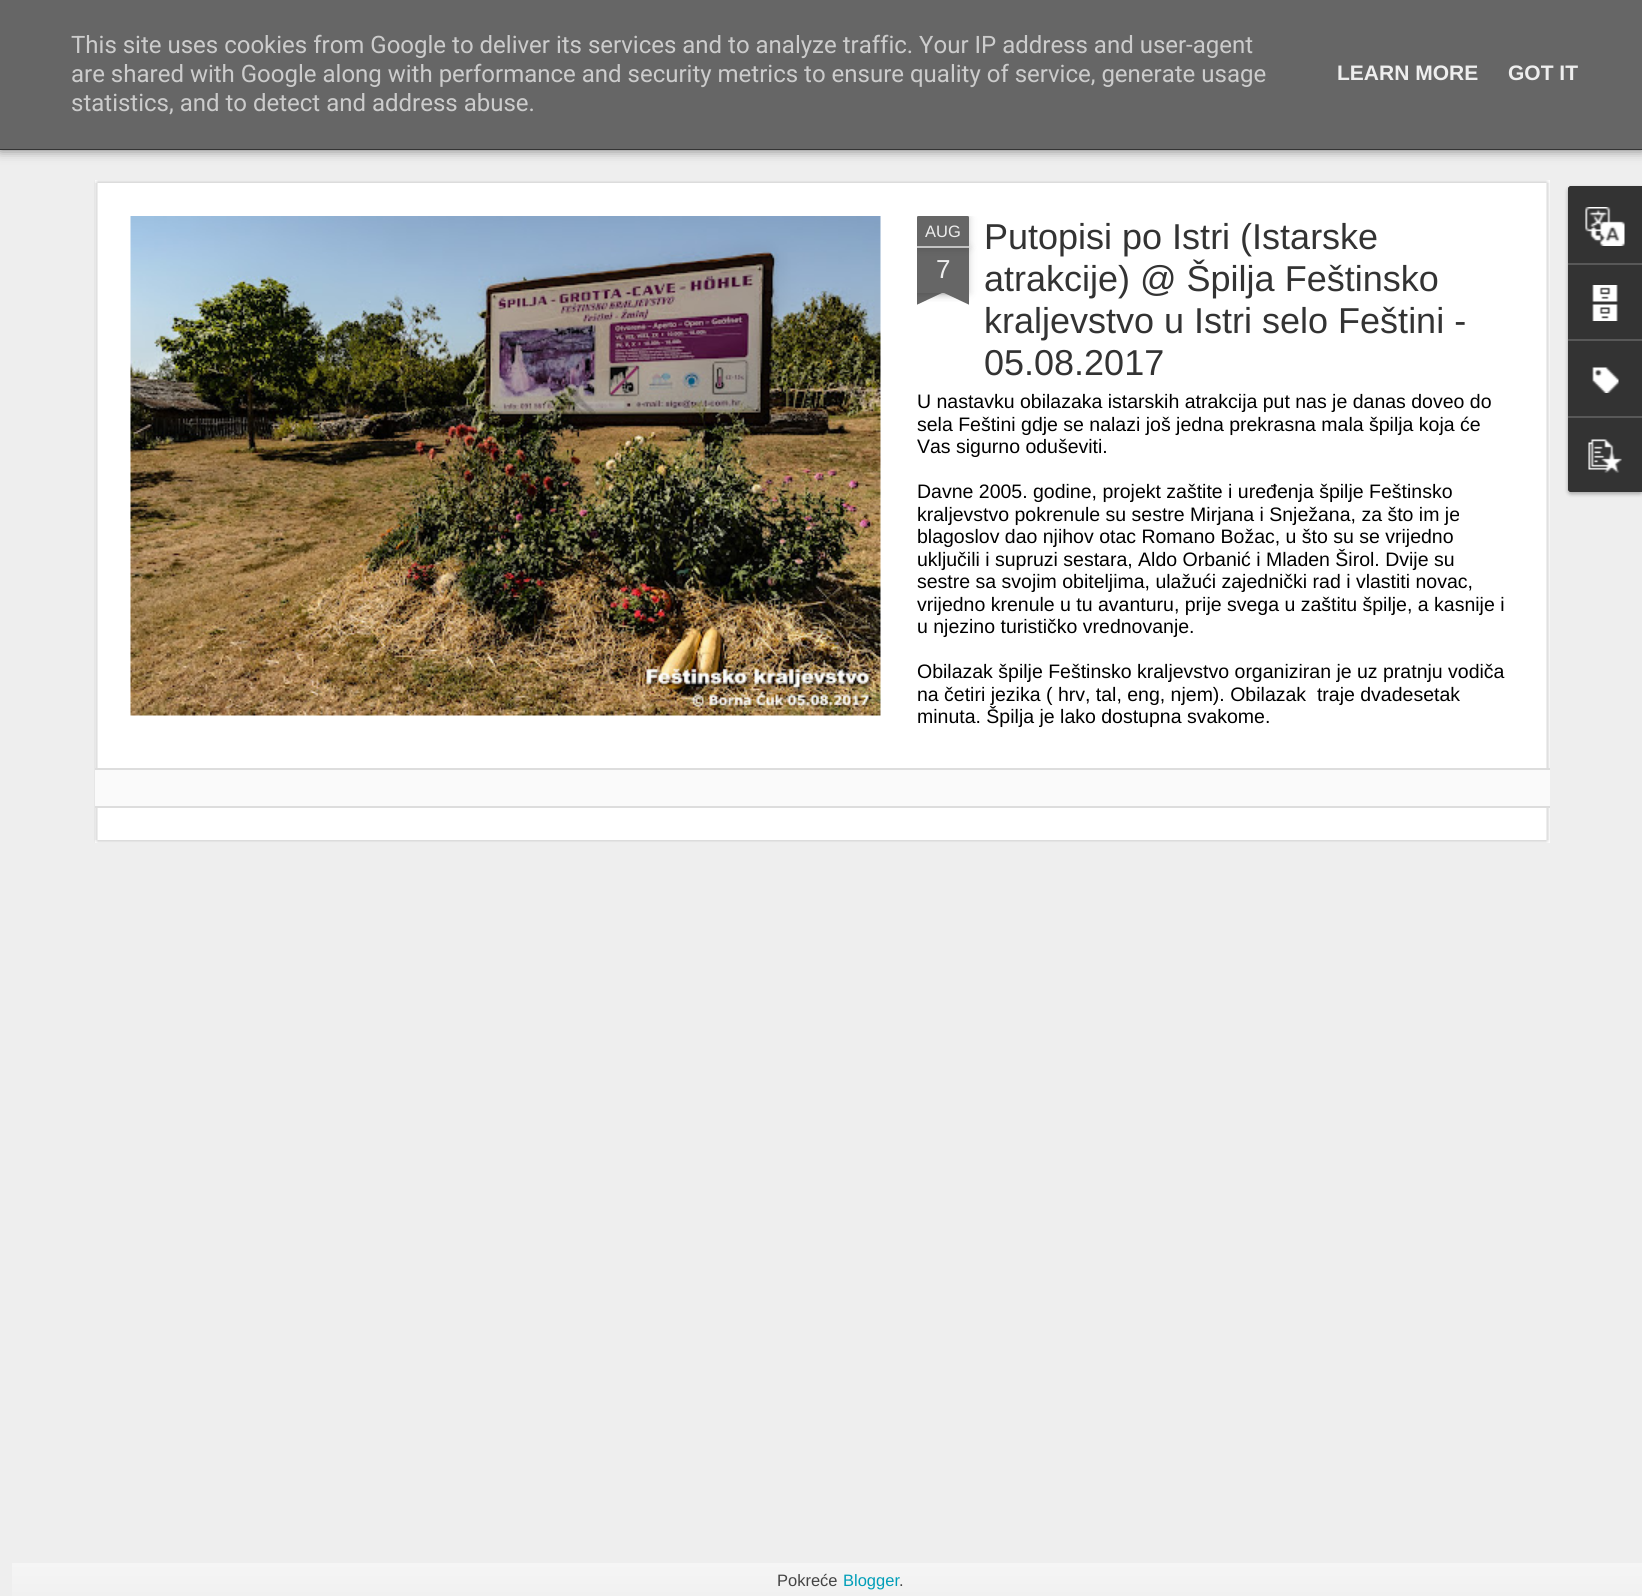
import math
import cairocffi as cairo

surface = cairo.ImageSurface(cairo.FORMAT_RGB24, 1642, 1596)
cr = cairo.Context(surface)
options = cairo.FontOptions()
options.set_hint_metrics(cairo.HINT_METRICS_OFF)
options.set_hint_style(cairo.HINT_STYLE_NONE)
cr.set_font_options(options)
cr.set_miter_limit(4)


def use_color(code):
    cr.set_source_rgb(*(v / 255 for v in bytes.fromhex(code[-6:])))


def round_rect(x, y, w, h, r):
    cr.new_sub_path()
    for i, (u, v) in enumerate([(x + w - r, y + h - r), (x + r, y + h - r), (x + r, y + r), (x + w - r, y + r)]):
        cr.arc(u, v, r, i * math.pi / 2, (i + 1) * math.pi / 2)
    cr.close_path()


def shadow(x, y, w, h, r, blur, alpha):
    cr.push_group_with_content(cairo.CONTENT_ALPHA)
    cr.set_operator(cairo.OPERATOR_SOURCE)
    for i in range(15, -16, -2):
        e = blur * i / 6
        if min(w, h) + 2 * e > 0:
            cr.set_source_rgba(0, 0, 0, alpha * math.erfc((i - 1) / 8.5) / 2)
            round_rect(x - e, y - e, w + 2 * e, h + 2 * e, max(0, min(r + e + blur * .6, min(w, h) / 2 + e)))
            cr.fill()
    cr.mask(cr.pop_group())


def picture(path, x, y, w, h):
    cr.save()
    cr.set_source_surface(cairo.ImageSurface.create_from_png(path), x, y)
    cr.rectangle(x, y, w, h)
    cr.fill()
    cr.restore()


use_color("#eeeeee")
cr.paint()
use_color("#000000")
shadow(0, 98, 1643, 52, 0, 6, 0.5)
use_color("#666666")
cr.rectangle(0, 0, 1642, 149)
cr.fill()
cr.select_font_face("Roboto")
cr.set_font_size(24)
use_color("#cccccc")
cr.move_to(71, 53)
cr.show_text("This site uses cookies from Google to deliver its services and to analyze traffic. Your IP address and user-agent")
cr.move_to(71, 82)
cr.show_text("are shared with Google along with performance and security metrics to ensure quality of service, generate usage")
cr.move_to(71, 111)
cr.show_text("statistics, and to detect and address abuse.")
cr.select_font_face("Liberation Sans", cairo.FONT_SLANT_NORMAL, cairo.FONT_WEIGHT_BOLD)
cr.set_font_size(21)
use_color("#eeeeee")
cr.move_to(1337, 80)
cr.show_text("LEARN MORE")
cr.move_to(1508, 80)
cr.show_text("GOT IT")
use_color("#333333")
cr.rectangle(0, 149, 1642, 1)
cr.fill()
use_color("#ffffff")
cr.rectangle(95, 180, 1455, 663)
cr.fill()
picture("img1.png", 94, 180, 1456, 663)
picture("img2.png", 130, 216, 751, 500)
cr.save()
cr.rectangle(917, 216, 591, 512)
cr.clip()
use_color("#000000")
shadow(917, 248, 52, 45, 0, 4, 0.2)
cr.restore()
use_color("#666666")
cr.rectangle(917, 248, 52, 45)
cr.fill()
cr.save()
cr.rectangle(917, 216, 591, 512)
cr.clip()
use_color("#000000")
shadow(917, 216, 52, 32, 1.5, 4, 0.2)
cr.restore()
cr.new_path()
cr.move_to(918.5, 216)
cr.line_to(967.5, 216)
cr.curve_to(968.5, 216, 969, 216.5, 969, 217.5)
cr.line_to(969, 248)
cr.line_to(917, 248)
cr.line_to(917, 217.5)
cr.curve_to(917, 216.5, 917.5, 216, 918.5, 216)
cr.close_path()
cr.fill()
use_color("#c2c2c2")
cr.rectangle(917, 246, 52, 2)
cr.fill()
cr.select_font_face("Liberation Sans")
cr.set_font_size(16.5)
use_color("#eeeeee")
cr.move_to(925, 237)
cr.show_text("AUG")
cr.set_font_size(26)
cr.move_to(936, 278)
cr.show_text("7")
cr.save()
cr.rectangle(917, 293, 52, 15)
cr.clip()
use_color("#000000")
shadow(903, 278, 75, 15, 0, 4, 0.2)
cr.restore()
cr.save()
cr.rectangle(917, 293, 52, 15)
cr.clip()
use_color("#666666")
cr.new_path()
cr.move_to(904, 294)
cr.line_to(972, 262)
cr.line_to(978, 276)
cr.line_to(910, 308)
cr.close_path()
cr.fill()
cr.restore()
cr.save()
cr.rectangle(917, 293, 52, 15)
cr.clip()
use_color("#000000")
shadow(908, 278, 75, 15, 0, 4, 0.2)
cr.restore()
cr.save()
cr.rectangle(917, 293, 52, 15)
cr.clip()
use_color("#666666")
cr.new_path()
cr.move_to(914, 262)
cr.line_to(982, 294)
cr.line_to(976, 308)
cr.line_to(908, 276)
cr.close_path()
cr.fill()
cr.restore()
cr.set_font_size(36)
use_color("#333333")
cr.move_to(984, 249)
cr.show_text("Putopisi po Istri (Istarske")
cr.move_to(984, 291)
cr.show_text("atrakcije) @ Špilja Feštinsko")
cr.move_to(984, 333)
cr.show_text("kraljevstvo u Istri selo Feštini -")
cr.move_to(984, 375)
cr.show_text("05.08.2017")
cr.set_font_size(19.5)
use_color("#000000")
cr.move_to(917, 408)
cr.show_text("U nastavku obilazaka istarskih atrakcija put nas je danas doveo do")
cr.move_to(917, 431)
cr.show_text("sela Feštini gdje se nalazi još jedna prekrasna mala špilja koja će")
cr.move_to(917, 453)
cr.show_text("Vas sigurno oduševiti.")
cr.move_to(917, 498)
cr.show_text("Davne 2005. godine, projekt zaštite i uređenja špilje Feštinsko")
cr.move_to(917, 521)
cr.show_text("kraljevstvo pokrenule su sestre Mirjana i Snježana, za što im je")
cr.move_to(917, 543)
cr.show_text("blagoslov dao njihov otac Romano Božac, u što su se vrijedno")
cr.move_to(917, 566)
cr.show_text("uključili i supruzi sestara, Aldo Orbanić i Mladen Širol. Dvije su")
cr.move_to(917, 588)
cr.show_text("sestre sa svojim obiteljima, ulažući zajednički rad i vlastiti novac,")
cr.move_to(917, 611)
cr.show_text("vrijedno krenule u tu avanturu, prije svega u zaštitu špilje, a kasnije i")
cr.move_to(917, 633)
cr.show_text("u njezino turističko vrednovanje.")
cr.move_to(917, 678)
cr.show_text("Obilazak špilje Feštinsko kraljevstvo organiziran je uz pratnju vodiča")
cr.move_to(917, 701)
cr.show_text("na četiri jezika ( hrv, tal, eng, njem). Obilazak  traje dvadesetak")
cr.move_to(917, 723)
cr.show_text("minuta. Špilja je lako dostupna svakome.")
use_color("#fafafa")
cr.rectangle(95, 770, 1455, 36)
cr.fill()
use_color("#dddddd")
cr.rectangle(95, 768, 1455, 2)
cr.fill()
cr.rectangle(95, 806, 1455, 2)
cr.fill()
use_color("#000000")
shadow(1568, 188, 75, 306, 3, 2, 0.3)
use_color("#333333")
cr.new_path()
cr.move_to(1571, 186)
cr.line_to(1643, 186)
cr.line_to(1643, 492)
cr.line_to(1571, 492)
cr.curve_to(1569.5, 492, 1568, 490.5, 1568, 489)
cr.line_to(1568, 189)
cr.curve_to(1568, 187.5, 1569.5, 186, 1571, 186)
cr.close_path()
cr.fill()
cr.new_path()
cr.move_to(1571, 186)
cr.line_to(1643, 186)
cr.line_to(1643, 263)
cr.line_to(1568, 263)
cr.line_to(1568, 189)
cr.curve_to(1568, 187.5, 1569.5, 186, 1571, 186)
cr.close_path()
cr.fill()
picture("img3.png", 1585, 207, 40, 39)
use_color("#585858")
cr.rectangle(1568, 263, 74, 2)
cr.fill()
picture("img4.png", 1592, 285, 26, 36)
cr.rectangle(1568, 339, 74, 2)
cr.fill()
picture("img5.png", 1592, 367, 27, 26)
use_color("#333333")
cr.new_path()
cr.move_to(1568, 416)
cr.line_to(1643, 416)
cr.line_to(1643, 492)
cr.line_to(1571, 492)
cr.curve_to(1569.5, 492, 1568, 490.5, 1568, 489)
cr.close_path()
cr.fill()
use_color("#585858")
cr.rectangle(1568, 416, 74, 2)
cr.fill()
picture("img6.png", 1588, 439, 34, 34)
gradient = cairo.LinearGradient(841, 1563, 841, 1596)
gradient.add_color_stop_rgba(0, 0.961, 0.961, 0.961, 1)
gradient.add_color_stop_rgba(1, 0.945, 0.945, 0.945, 1)
cr.set_source(gradient)
cr.rectangle(12, 1563, 1630, 33)
cr.fill()
cr.set_font_size(16.5)
use_color("#444444")
cr.move_to(777, 1586)
cr.show_text("Pokreće")
use_color("#009eb8")
cr.move_to(843, 1586)
cr.show_text("Blogger")
use_color("#444444")
cr.move_to(899, 1586)
cr.show_text(".")
surface.write_to_png("result.png")
